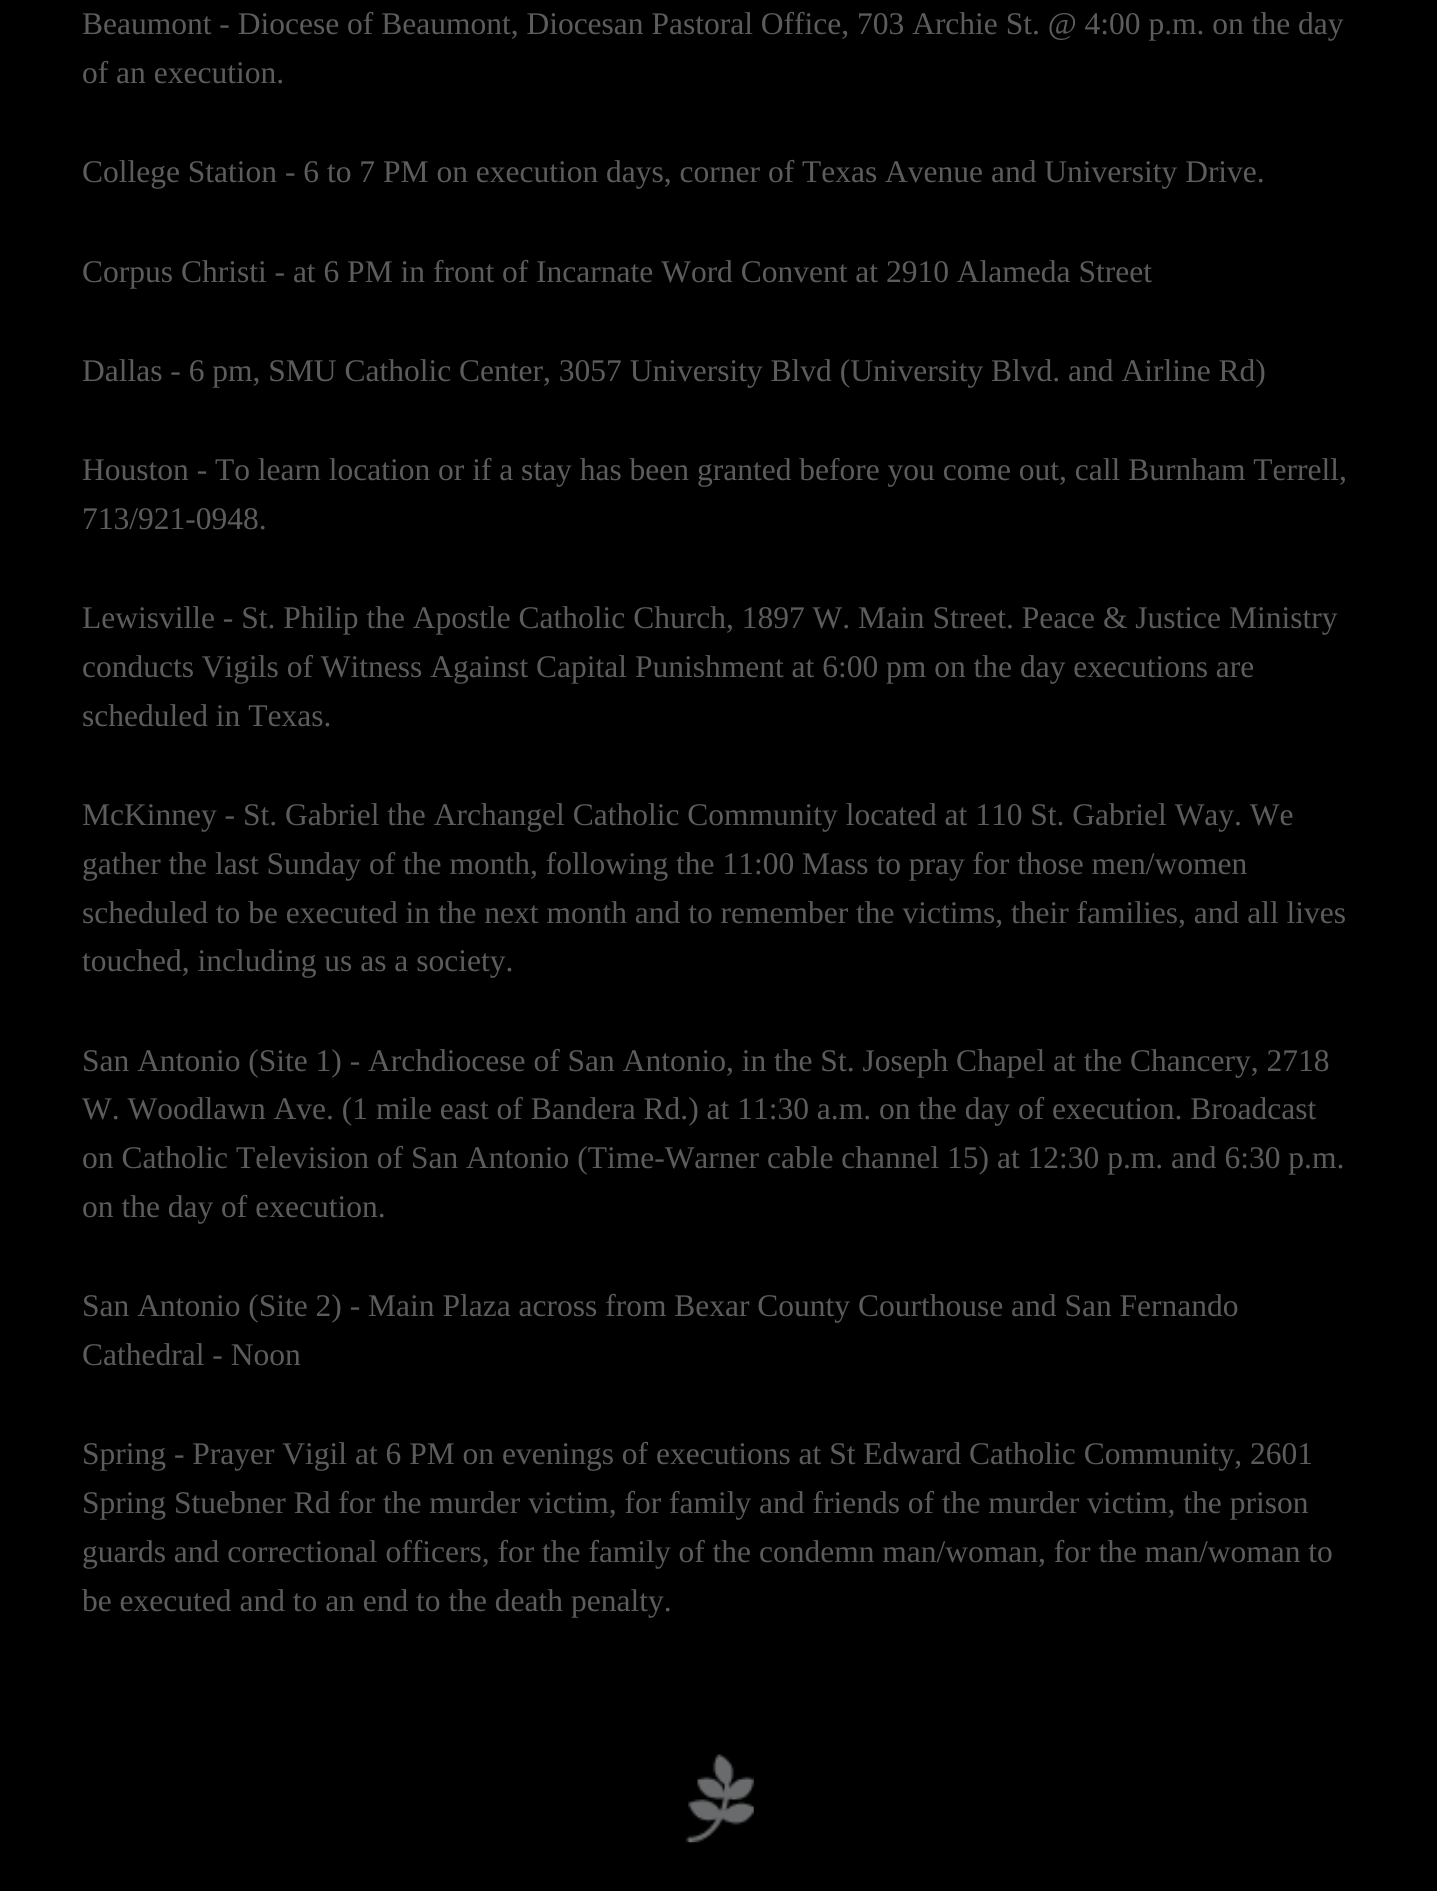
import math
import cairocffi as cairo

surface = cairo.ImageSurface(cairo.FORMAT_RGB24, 1437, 1891)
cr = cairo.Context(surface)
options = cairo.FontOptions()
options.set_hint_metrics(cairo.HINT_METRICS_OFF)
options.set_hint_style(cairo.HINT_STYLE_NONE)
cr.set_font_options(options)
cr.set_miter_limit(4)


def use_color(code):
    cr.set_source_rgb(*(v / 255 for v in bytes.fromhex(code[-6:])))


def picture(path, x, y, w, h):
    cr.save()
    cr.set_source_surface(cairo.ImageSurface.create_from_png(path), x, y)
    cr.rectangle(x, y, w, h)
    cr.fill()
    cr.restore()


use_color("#000000")
cr.paint()
cr.select_font_face("Liberation Serif")
cr.set_font_size(31.5)
use_color("#5c5c5c")
cr.move_to(82, 34)
cr.show_text("Beaumont - Diocese of Beaumont, Diocesan Pastoral Office, 703 Archie St. @ 4:00 p.m. on the day")
cr.move_to(82, 83)
cr.show_text("of an execution.")
cr.move_to(82, 182)
cr.show_text("College Station - 6 to 7 PM on execution days, corner of Texas Avenue and University Drive.")
cr.move_to(82, 282)
cr.show_text("Corpus Christi - at 6 PM in front of Incarnate Word Convent at 2910 Alameda Street")
cr.move_to(82, 381)
cr.show_text("Dallas - 6 pm, SMU Catholic Center, 3057 University Blvd (University Blvd. and Airline Rd)")
cr.move_to(82, 480)
cr.show_text("Houston - To learn location or if a stay has been granted before you come out, call Burnham Terrell,")
cr.move_to(82, 529)
cr.show_text("713/921-0948.")
cr.move_to(82, 628)
cr.show_text("Lewisville - St. Philip the Apostle Catholic Church, 1897 W. Main Street. Peace & Justice Ministry")
cr.move_to(82, 677)
cr.show_text("conducts Vigils of Witness Against Capital Punishment at 6:00 pm on the day executions are")
cr.move_to(82, 726)
cr.show_text("scheduled in Texas.")
cr.move_to(82, 825)
cr.show_text("McKinney - St. Gabriel the Archangel Catholic Community located at 110 St. Gabriel Way. We")
cr.move_to(82, 874)
cr.show_text("gather the last Sunday of the month, following the 11:00 Mass to pray for those men/women")
cr.move_to(82, 923)
cr.show_text("scheduled to be executed in the next month and to remember the victims, their families, and all lives")
cr.move_to(82, 971)
cr.show_text("touched, including us as a society.")
cr.move_to(82, 1071)
cr.show_text("San Antonio (Site 1) - Archdiocese of San Antonio, in the St. Joseph Chapel at the Chancery, 2718")
cr.move_to(82, 1119)
cr.show_text("W. Woodlawn Ave. (1 mile east of Bandera Rd.) at 11:30 a.m. on the day of execution. Broadcast")
cr.move_to(82, 1168)
cr.show_text("on Catholic Television of San Antonio (Time-Warner cable channel 15) at 12:30 p.m. and 6:30 p.m.")
cr.move_to(82, 1217)
cr.show_text("on the day of execution.")
cr.move_to(82, 1316)
cr.show_text("San Antonio (Site 2) - Main Plaza across from Bexar County Courthouse and San Fernando")
cr.move_to(82, 1365)
cr.show_text("Cathedral - Noon")
cr.move_to(82, 1464)
cr.show_text("Spring - Prayer Vigil at 6 PM on evenings of executions at St Edward Catholic Community, 2601")
cr.move_to(82, 1513)
cr.show_text("Spring Stuebner Rd for the murder victim, for family and friends of the murder victim, the prison")
cr.move_to(82, 1562)
cr.show_text("guards and correctional officers, for the family of the condemn man/woman, for the man/woman to")
cr.move_to(82, 1611)
cr.show_text("be executed and to an end to the death penalty.")
picture("img1.png", 686, 1754, 68, 89)
surface.write_to_png("result.png")
